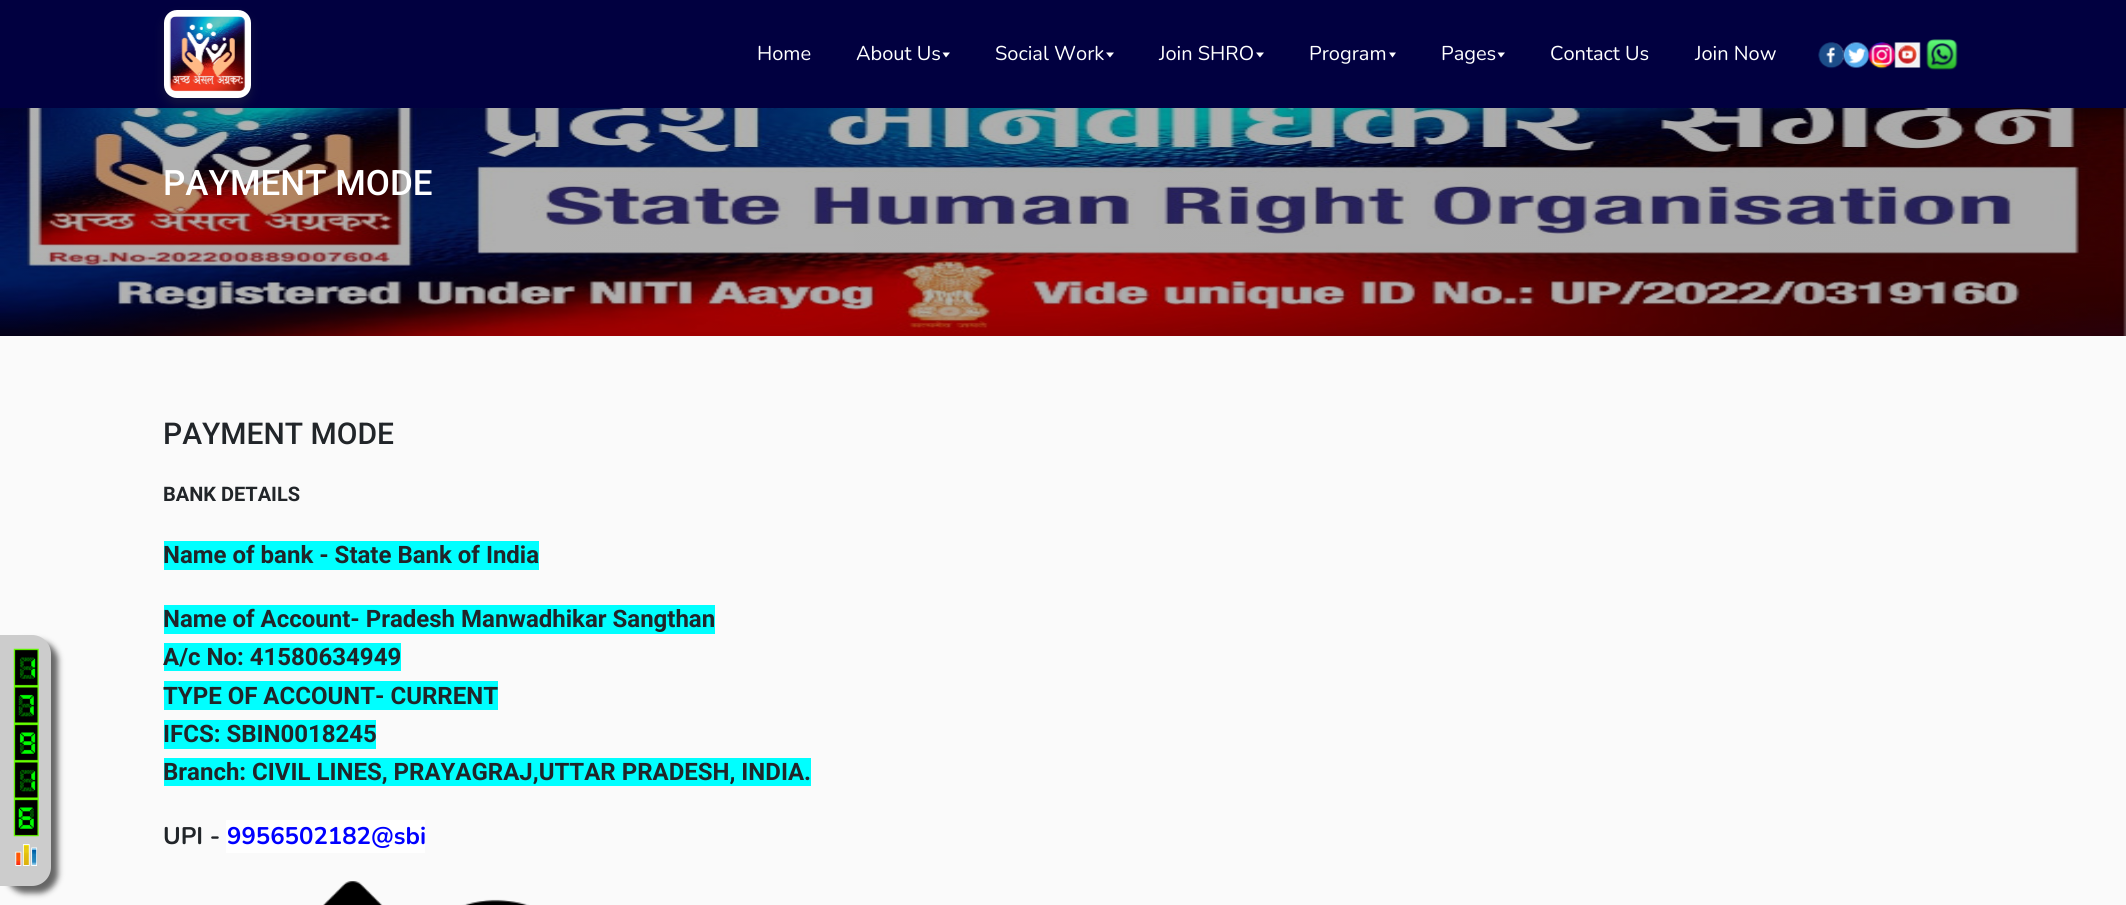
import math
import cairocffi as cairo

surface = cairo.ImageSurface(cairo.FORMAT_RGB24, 2126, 905)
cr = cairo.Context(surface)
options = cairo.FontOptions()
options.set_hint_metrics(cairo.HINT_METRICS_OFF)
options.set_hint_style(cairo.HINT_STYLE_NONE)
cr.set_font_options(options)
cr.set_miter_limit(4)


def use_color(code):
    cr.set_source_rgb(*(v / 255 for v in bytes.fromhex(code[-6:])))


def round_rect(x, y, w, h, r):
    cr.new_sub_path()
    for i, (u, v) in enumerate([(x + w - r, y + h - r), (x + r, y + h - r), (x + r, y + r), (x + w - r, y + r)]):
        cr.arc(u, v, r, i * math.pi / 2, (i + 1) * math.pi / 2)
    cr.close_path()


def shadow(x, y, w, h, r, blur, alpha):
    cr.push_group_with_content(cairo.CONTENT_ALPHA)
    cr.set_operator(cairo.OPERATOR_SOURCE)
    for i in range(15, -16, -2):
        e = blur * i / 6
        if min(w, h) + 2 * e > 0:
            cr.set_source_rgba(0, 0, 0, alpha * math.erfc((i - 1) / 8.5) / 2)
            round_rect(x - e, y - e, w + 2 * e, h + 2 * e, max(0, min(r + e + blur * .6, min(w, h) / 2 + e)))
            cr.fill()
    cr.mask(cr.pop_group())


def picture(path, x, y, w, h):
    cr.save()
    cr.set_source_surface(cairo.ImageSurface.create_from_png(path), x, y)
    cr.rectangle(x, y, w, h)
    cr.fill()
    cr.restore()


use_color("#ffffff")
cr.paint()
use_color("#010040")
cr.rectangle(0, 0, 2126, 108)
cr.fill()
picture("img7.png", 0, 108, 2126, 228)
use_color("#1f223e")
shadow(164, 16, 87, 88, 13, 5, 0.58)
use_color("#ffffff")
round_rect(164, 10, 87, 88, 13)
cr.fill()
picture("img1.png", 169, 16, 77, 76)
cr.select_font_face("Nunito")
cr.set_font_size(20)
cr.move_to(757, 60)
cr.show_text("Home")
cr.move_to(856, 60)
cr.show_text("About Us")
cr.new_path()
cr.move_to(942.5, 52.5)
cr.line_to(950, 52.5)
cr.line_to(946, 57.5)
cr.close_path()
cr.fill()
cr.move_to(995, 60)
cr.show_text("Social Work")
cr.new_path()
cr.move_to(1106, 52.5)
cr.line_to(1114, 52.5)
cr.line_to(1110, 57.5)
cr.close_path()
cr.fill()
cr.move_to(1159, 60)
cr.show_text("Join SHRO")
cr.new_path()
cr.move_to(1256, 52.5)
cr.line_to(1264, 52.5)
cr.line_to(1260, 57.5)
cr.close_path()
cr.fill()
cr.move_to(1309, 60)
cr.show_text("Program")
cr.new_path()
cr.move_to(1389, 52.5)
cr.line_to(1396, 52.5)
cr.line_to(1392.5, 57.5)
cr.close_path()
cr.fill()
cr.move_to(1441, 60)
cr.show_text("Pages")
cr.new_path()
cr.move_to(1497.5, 52.5)
cr.line_to(1505, 52.5)
cr.line_to(1501, 57.5)
cr.close_path()
cr.fill()
cr.move_to(1550, 60)
cr.show_text("Contact Us")
cr.move_to(1695, 60)
cr.show_text("Join Now")
picture("img2.png", 1818, 42, 27, 27)
picture("img3.png", 1843, 42, 26, 26)
picture("img4.png", 1868, 42, 28, 27)
picture("img5.png", 1894, 42, 27, 26)
picture("img6.png", 1926, 39, 32, 31)
cr.select_font_face("Roboto Medium")
cr.set_font_size(35)
cr.move_to(163, 195)
cr.show_text("PAYMENT MODE")
use_color("#fafafa")
cr.rectangle(0, 336, 2126, 569)
cr.fill()
use_color("#656565")
shadow(6, 641, 52, 252, 19, 3, 1)
use_color("#cccccc")
cr.new_path()
cr.move_to(0, 635)
cr.line_to(32, 635)
cr.curve_to(42.5, 635, 51, 643.5, 51, 654)
cr.line_to(51, 867)
cr.curve_to(51, 877.5, 42.5, 886, 32, 886)
cr.line_to(0, 886)
cr.close_path()
cr.fill()
picture("img8.png", 13, 648, 26, 189)
picture("img9.png", 15, 844, 22, 22)
cr.set_font_size(30)
use_color("#212529")
cr.move_to(163, 444)
cr.show_text("PAYMENT MODE")
cr.select_font_face("Roboto", cairo.FONT_SLANT_NORMAL, cairo.FONT_WEIGHT_BOLD)
cr.set_font_size(20)
cr.move_to(163, 501)
cr.show_text("BANK DETAILS")
use_color("#00ffff")
cr.rectangle(164, 541, 375, 29)
cr.fill()
cr.set_font_size(24)
use_color("#212529")
cr.move_to(163, 563)
cr.show_text("Name of bank - State Bank of India")
use_color("#00ffff")
cr.rectangle(164, 605, 551, 29)
cr.fill()
use_color("#212529")
cr.move_to(163, 627)
cr.show_text("Name of Account- Pradesh Manwadhikar Sangthan")
use_color("#00ffff")
cr.rectangle(164, 643, 237, 28)
cr.fill()
use_color("#212529")
cr.move_to(163, 665)
cr.show_text("A/c No: 41580634949")
use_color("#00ffff")
cr.rectangle(164, 681, 334, 29)
cr.fill()
use_color("#212529")
cr.move_to(163, 704)
cr.show_text("TYPE OF ACCOUNT- CURRENT")
use_color("#00ffff")
cr.rectangle(164, 720, 212, 29)
cr.fill()
use_color("#212529")
cr.move_to(163, 742)
cr.show_text("IFCS: SBIN0018245")
use_color("#00ffff")
cr.rectangle(164, 758, 647, 28)
cr.fill()
use_color("#212529")
cr.move_to(163, 780)
cr.show_text("Branch: CIVIL LINES, PRAYAGRAJ,UTTAR PRADESH, INDIA.")
cr.select_font_face("Nunito", cairo.FONT_SLANT_NORMAL, cairo.FONT_WEIGHT_BOLD)
cr.move_to(163, 844)
cr.show_text("UPI -")
use_color("#ffffff")
cr.rectangle(226, 820, 199, 33)
cr.fill()
use_color("#0000ff")
cr.move_to(227, 844)
cr.show_text("9956502182@sbi")
picture("img10.png", 323, 881, 206, 24)
surface.write_to_png("result.png")
